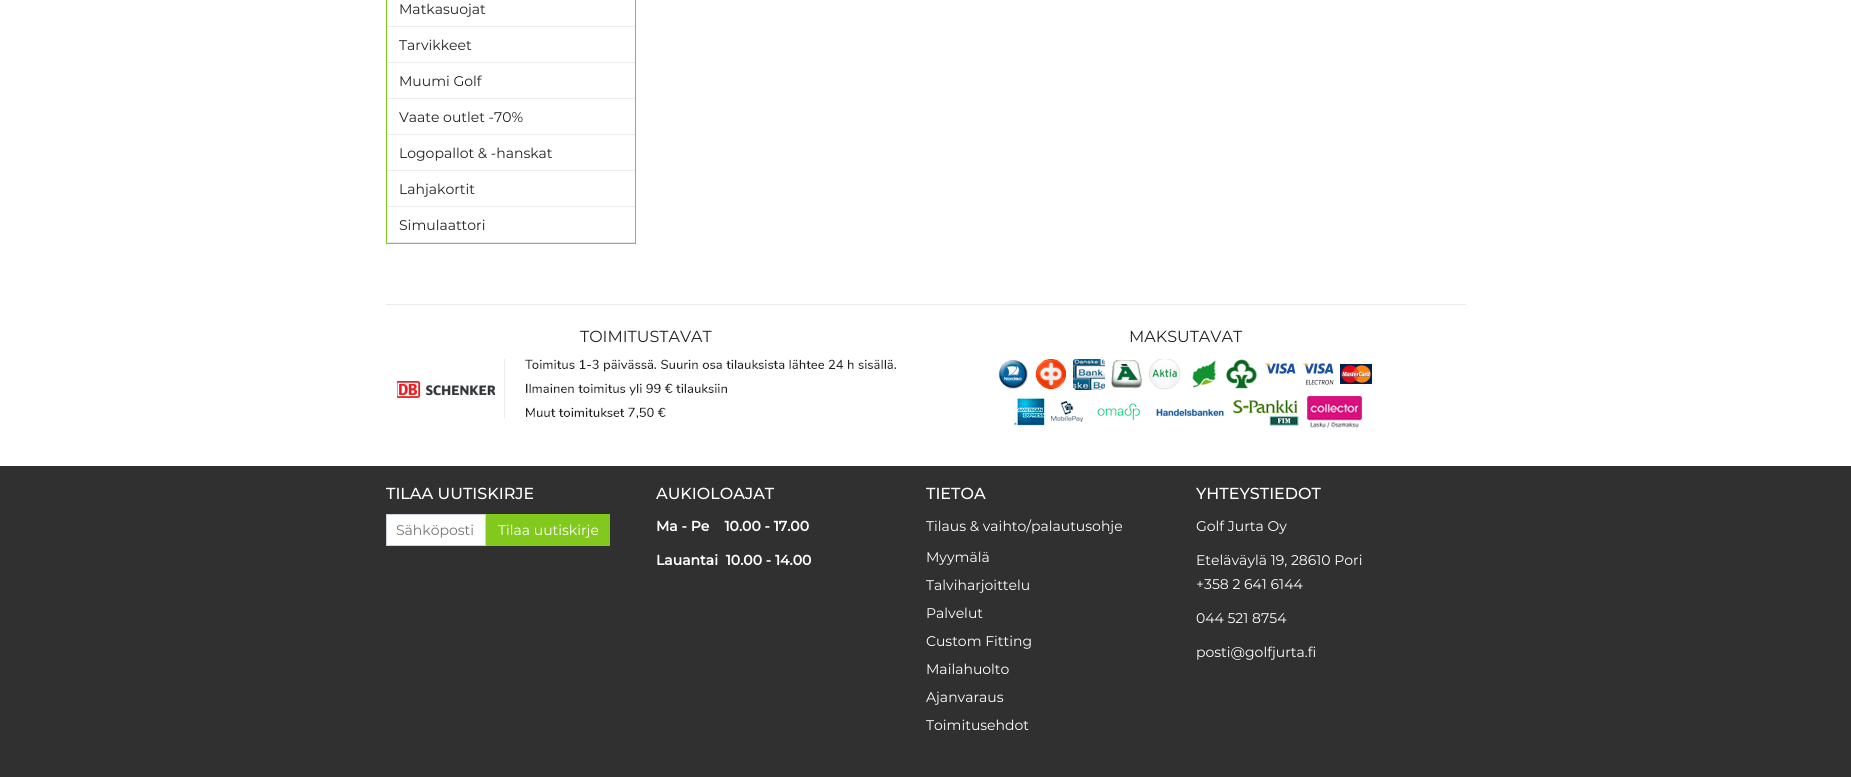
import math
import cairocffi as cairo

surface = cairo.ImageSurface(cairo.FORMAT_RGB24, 1851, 777)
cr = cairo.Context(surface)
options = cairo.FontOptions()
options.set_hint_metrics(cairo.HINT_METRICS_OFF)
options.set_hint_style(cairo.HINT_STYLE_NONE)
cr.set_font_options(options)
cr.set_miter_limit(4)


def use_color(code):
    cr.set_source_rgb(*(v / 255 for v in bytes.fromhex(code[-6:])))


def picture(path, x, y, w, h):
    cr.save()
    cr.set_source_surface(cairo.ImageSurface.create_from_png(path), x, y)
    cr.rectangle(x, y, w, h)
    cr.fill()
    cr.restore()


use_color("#ffffff")
cr.paint()
cr.rectangle(386.5, -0.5, 249, 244)
use_color("#82c91e")
cr.set_line_width(1)
cr.stroke()
use_color("#e9ecef")
cr.rectangle(387, 26, 248, 1)
cr.fill()
cr.select_font_face("Montserrat")
cr.set_font_size(14)
use_color("#222222")
cr.move_to(399, 14)
cr.show_text("Matkasuojat")
use_color("#e9ecef")
cr.rectangle(387, 62, 248, 1)
cr.fill()
use_color("#222222")
cr.move_to(399, 50)
cr.show_text("Tarvikkeet")
use_color("#e9ecef")
cr.rectangle(387, 98, 248, 1)
cr.fill()
use_color("#222222")
cr.move_to(399, 86)
cr.show_text("Muumi Golf")
use_color("#e9ecef")
cr.rectangle(387, 134, 248, 1)
cr.fill()
use_color("#222222")
cr.move_to(399, 122)
cr.show_text("Vaate outlet -70%")
use_color("#e9ecef")
cr.rectangle(387, 170, 248, 1)
cr.fill()
use_color("#222222")
cr.move_to(399, 158)
cr.show_text("Logopallot & -hanskat")
use_color("#e9ecef")
cr.rectangle(387, 206, 248, 1)
cr.fill()
use_color("#222222")
cr.move_to(399, 194)
cr.show_text("Lahjakortit")
use_color("#e9ecef")
cr.rectangle(387, 242, 248, 1)
cr.fill()
use_color("#222222")
cr.move_to(399, 230)
cr.show_text("Simulaattori")
use_color("#e9ecef")
cr.rectangle(386, 304, 1080, 1)
cr.fill()
cr.set_font_size(16)
use_color("#222222")
cr.move_to(580, 342)
cr.show_text("TOIMITUSTAVAT")
picture("img1.png", 397, 359, 499, 60)
cr.move_to(1129, 342)
cr.show_text("MAKSUTAVAT")
picture("img2.png", 998, 359, 374, 69)
use_color("#303030")
cr.rectangle(0, 466, 1851, 311)
cr.fill()
cr.select_font_face("Montserrat Medium")
use_color("#ffffff")
cr.move_to(386, 499)
cr.show_text("TILAA UUTISKIRJE")
cr.rectangle(386.5, 514.5, 99, 31)
cr.fill_preserve()
use_color("#ced4da")
cr.stroke()
cr.select_font_face("Montserrat")
cr.set_font_size(14)
use_color("#757575")
cr.move_to(396, 535)
cr.show_text("Sähköposti")
use_color("#82c91e")
cr.rectangle(486, 514, 124, 32)
cr.fill()
use_color("#ffffff")
cr.move_to(498, 535)
cr.show_text("Tilaa uutiskirje")
cr.select_font_face("Montserrat Medium")
cr.set_font_size(16)
cr.move_to(656, 499)
cr.show_text("AUKIOLOAJAT")
cr.select_font_face("Montserrat", cairo.FONT_SLANT_NORMAL, cairo.FONT_WEIGHT_BOLD)
cr.set_font_size(14)
cr.move_to(656, 531)
cr.show_text("Ma - Pe    10.00 - 17.00")
cr.move_to(656, 565)
cr.show_text("Lauantai  10.00 - 14.00")
cr.select_font_face("Montserrat Medium")
cr.set_font_size(16)
cr.move_to(926, 499)
cr.show_text("TIETOA")
cr.select_font_face("Montserrat")
cr.set_font_size(14)
cr.move_to(926, 531)
cr.show_text("Tilaus & vaihto/palautusohje")
cr.move_to(926, 562)
cr.show_text("Myymälä")
cr.move_to(926, 590)
cr.show_text("Talviharjoittelu")
cr.move_to(926, 618)
cr.show_text("Palvelut")
cr.move_to(926, 646)
cr.show_text("Custom Fitting")
cr.move_to(926, 674)
cr.show_text("Mailahuolto")
cr.move_to(926, 702)
cr.show_text("Ajanvaraus")
cr.move_to(926, 730)
cr.show_text("Toimitusehdot")
cr.select_font_face("Montserrat Medium")
cr.set_font_size(16)
cr.move_to(1196, 499)
cr.show_text("YHTEYSTIEDOT")
cr.select_font_face("Montserrat")
cr.set_font_size(14)
cr.move_to(1196, 531)
cr.show_text("Golf Jurta Oy")
cr.move_to(1196, 565)
cr.show_text("Eteläväylä 19, 28610 Pori")
cr.move_to(1196, 589)
cr.show_text("+358 2 641 6144")
cr.move_to(1196, 623)
cr.show_text("044 521 8754")
cr.move_to(1196, 657)
cr.show_text("posti@golfjurta.fi")
surface.write_to_png("result.png")
